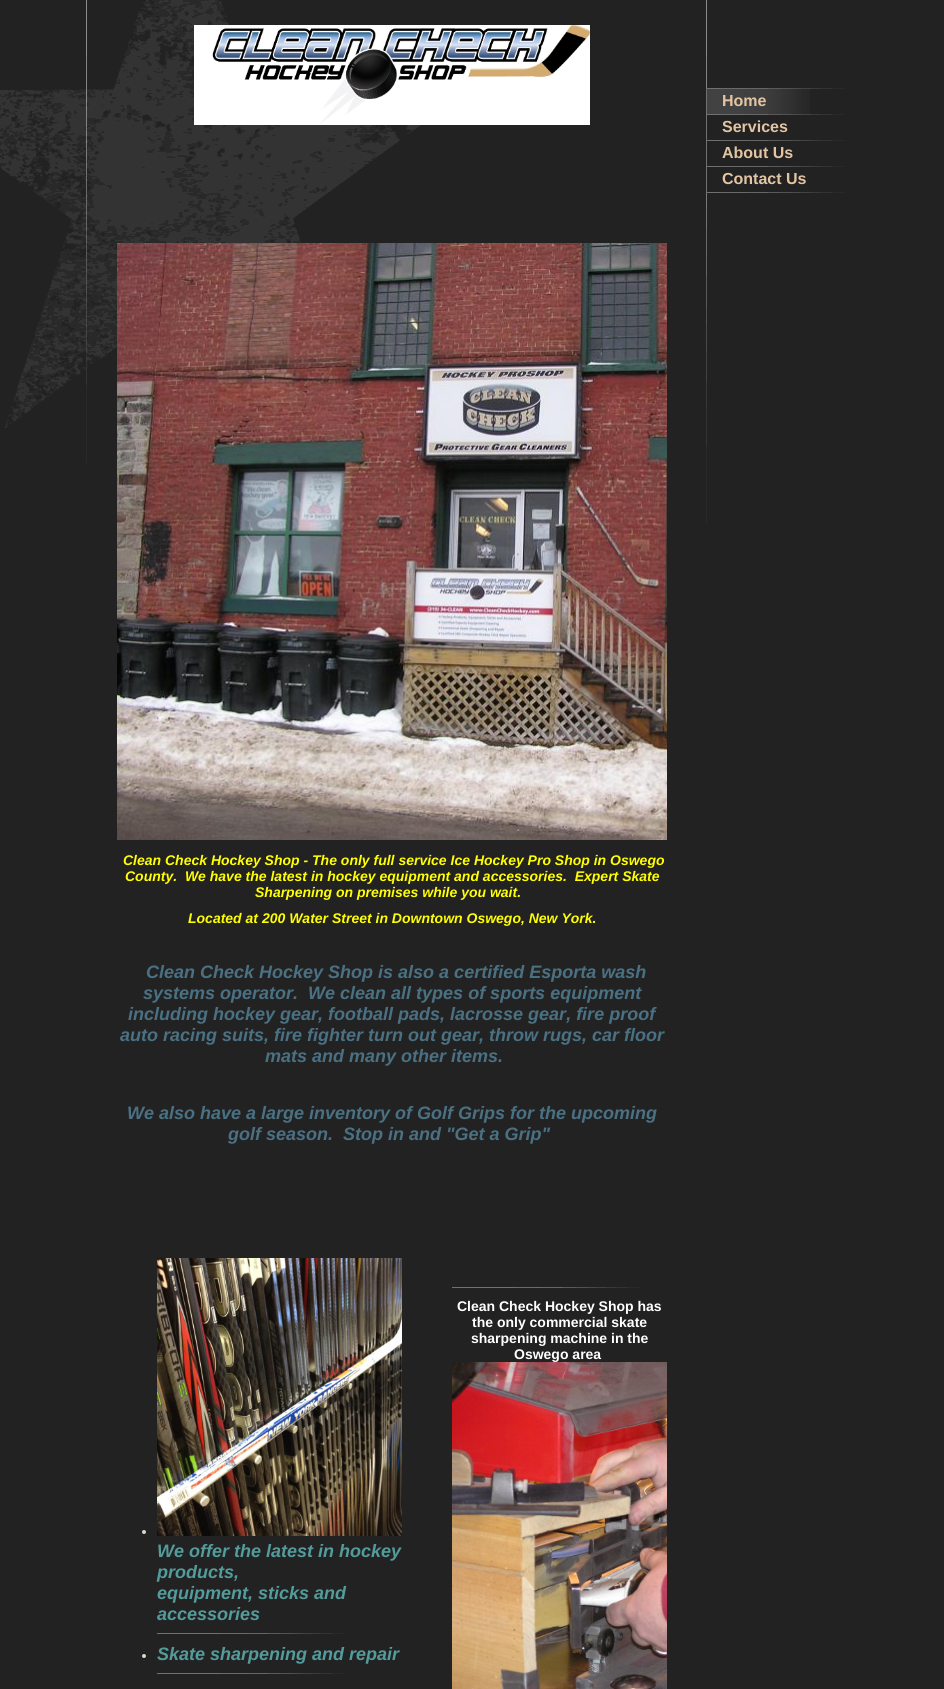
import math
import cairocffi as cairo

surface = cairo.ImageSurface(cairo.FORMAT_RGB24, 944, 1689)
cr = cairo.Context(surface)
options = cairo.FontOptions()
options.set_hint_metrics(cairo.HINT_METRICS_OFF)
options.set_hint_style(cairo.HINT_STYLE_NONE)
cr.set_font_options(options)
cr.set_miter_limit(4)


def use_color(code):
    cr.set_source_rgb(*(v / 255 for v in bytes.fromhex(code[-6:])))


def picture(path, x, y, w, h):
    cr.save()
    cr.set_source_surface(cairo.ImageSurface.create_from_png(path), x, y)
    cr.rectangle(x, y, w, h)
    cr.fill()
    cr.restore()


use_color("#222222")
cr.paint()
picture("img1.png", 0, 0, 707, 463)
picture("img2.png", 194, 25, 396, 100)
picture("img3.png", 706, 193, 1, 331)
picture("img4.png", 707, 88, 138, 1)
use_color("#717171")
cr.rectangle(706, 88, 1, 105)
cr.fill()
picture("img4.png", 707, 114, 138, 1)
picture("img5.png", 707, 89, 103, 25)
cr.select_font_face("Liberation Sans", cairo.FONT_SLANT_NORMAL, cairo.FONT_WEIGHT_BOLD)
cr.set_font_size(16)
use_color("#e3c5a3")
cr.move_to(722, 106)
cr.show_text("Home")
picture("img4.png", 707, 140, 138, 1)
cr.move_to(722, 132)
cr.show_text("Services")
picture("img4.png", 707, 166, 138, 1)
cr.move_to(722, 158)
cr.show_text("About Us")
picture("img4.png", 707, 192, 138, 1)
cr.move_to(722, 184)
cr.show_text("Contact Us")
picture("img6.png", 117, 243, 550, 597)
cr.select_font_face("Liberation Sans", cairo.FONT_SLANT_ITALIC, cairo.FONT_WEIGHT_BOLD)
cr.set_font_size(14)
use_color("#ffff00")
cr.move_to(123, 865)
cr.show_text("Clean Check Hockey Shop - The only full service Ice Hockey Pro Shop in Oswego")
cr.move_to(125, 881)
cr.show_text("County.  We have the latest in hockey equipment and accessories.  Expert Skate")
cr.move_to(255, 897)
cr.show_text("Sharpening on premises while you wait.")
cr.move_to(188, 923)
cr.show_text("Located at 200 Water Street in Downtown Oswego, New York.")
cr.set_font_size(18)
use_color("#4a7183")
cr.move_to(146, 978)
cr.show_text("Clean Check Hockey Shop is also a certified Esporta wash")
cr.move_to(143, 999)
cr.show_text("systems operator.  We clean all types of sports equipment")
cr.move_to(128, 1020)
cr.show_text("including hockey gear, football pads, lacrosse gear, fire proof")
cr.move_to(120, 1041)
cr.show_text("auto racing suits, fire fighter turn out gear, throw rugs, car floor")
cr.move_to(265, 1062)
cr.show_text("mats and many other items.")
cr.move_to(127, 1119)
cr.show_text("We also have a large inventory of Golf Grips for the upcoming")
cr.move_to(228, 1140)
cr.show_text("golf season.  Stop in and \"Get a Grip\"")
picture("img7.png", 452, 1287, 188, 1)
cr.select_font_face("Liberation Sans", cairo.FONT_SLANT_NORMAL, cairo.FONT_WEIGHT_BOLD)
cr.set_font_size(14)
use_color("#ffffff")
cr.move_to(457, 1311)
cr.show_text("Clean Check Hockey Shop has")
cr.move_to(472, 1327)
cr.show_text("the only commercial skate")
cr.move_to(471, 1343)
cr.show_text("sharpening machine in the")
cr.move_to(514, 1359)
cr.show_text("Oswego area")
picture("img8.png", 452, 1362, 215, 327)
use_color("#d5daca")
cr.arc(144, 1532, 2, 0, 2 * math.pi)
cr.fill()
picture("img7.png", 157, 1633, 188, 1)
picture("img9.png", 157, 1258, 245, 278)
cr.select_font_face("Liberation Sans", cairo.FONT_SLANT_ITALIC, cairo.FONT_WEIGHT_BOLD)
cr.set_font_size(18)
use_color("#549b9b")
cr.move_to(157, 1557)
cr.show_text("We offer the latest in hockey")
cr.move_to(157, 1578)
cr.show_text("products,")
cr.move_to(157, 1599)
cr.show_text("equipment, sticks and")
cr.move_to(157, 1620)
cr.show_text("accessories")
use_color("#d5daca")
cr.new_path()
cr.arc(144, 1656, 2, 0, 2 * math.pi)
cr.fill()
picture("img7.png", 157, 1673, 188, 1)
use_color("#549b9b")
cr.move_to(157, 1660)
cr.show_text("Skate sharpening and repair")
surface.write_to_png("result.png")
